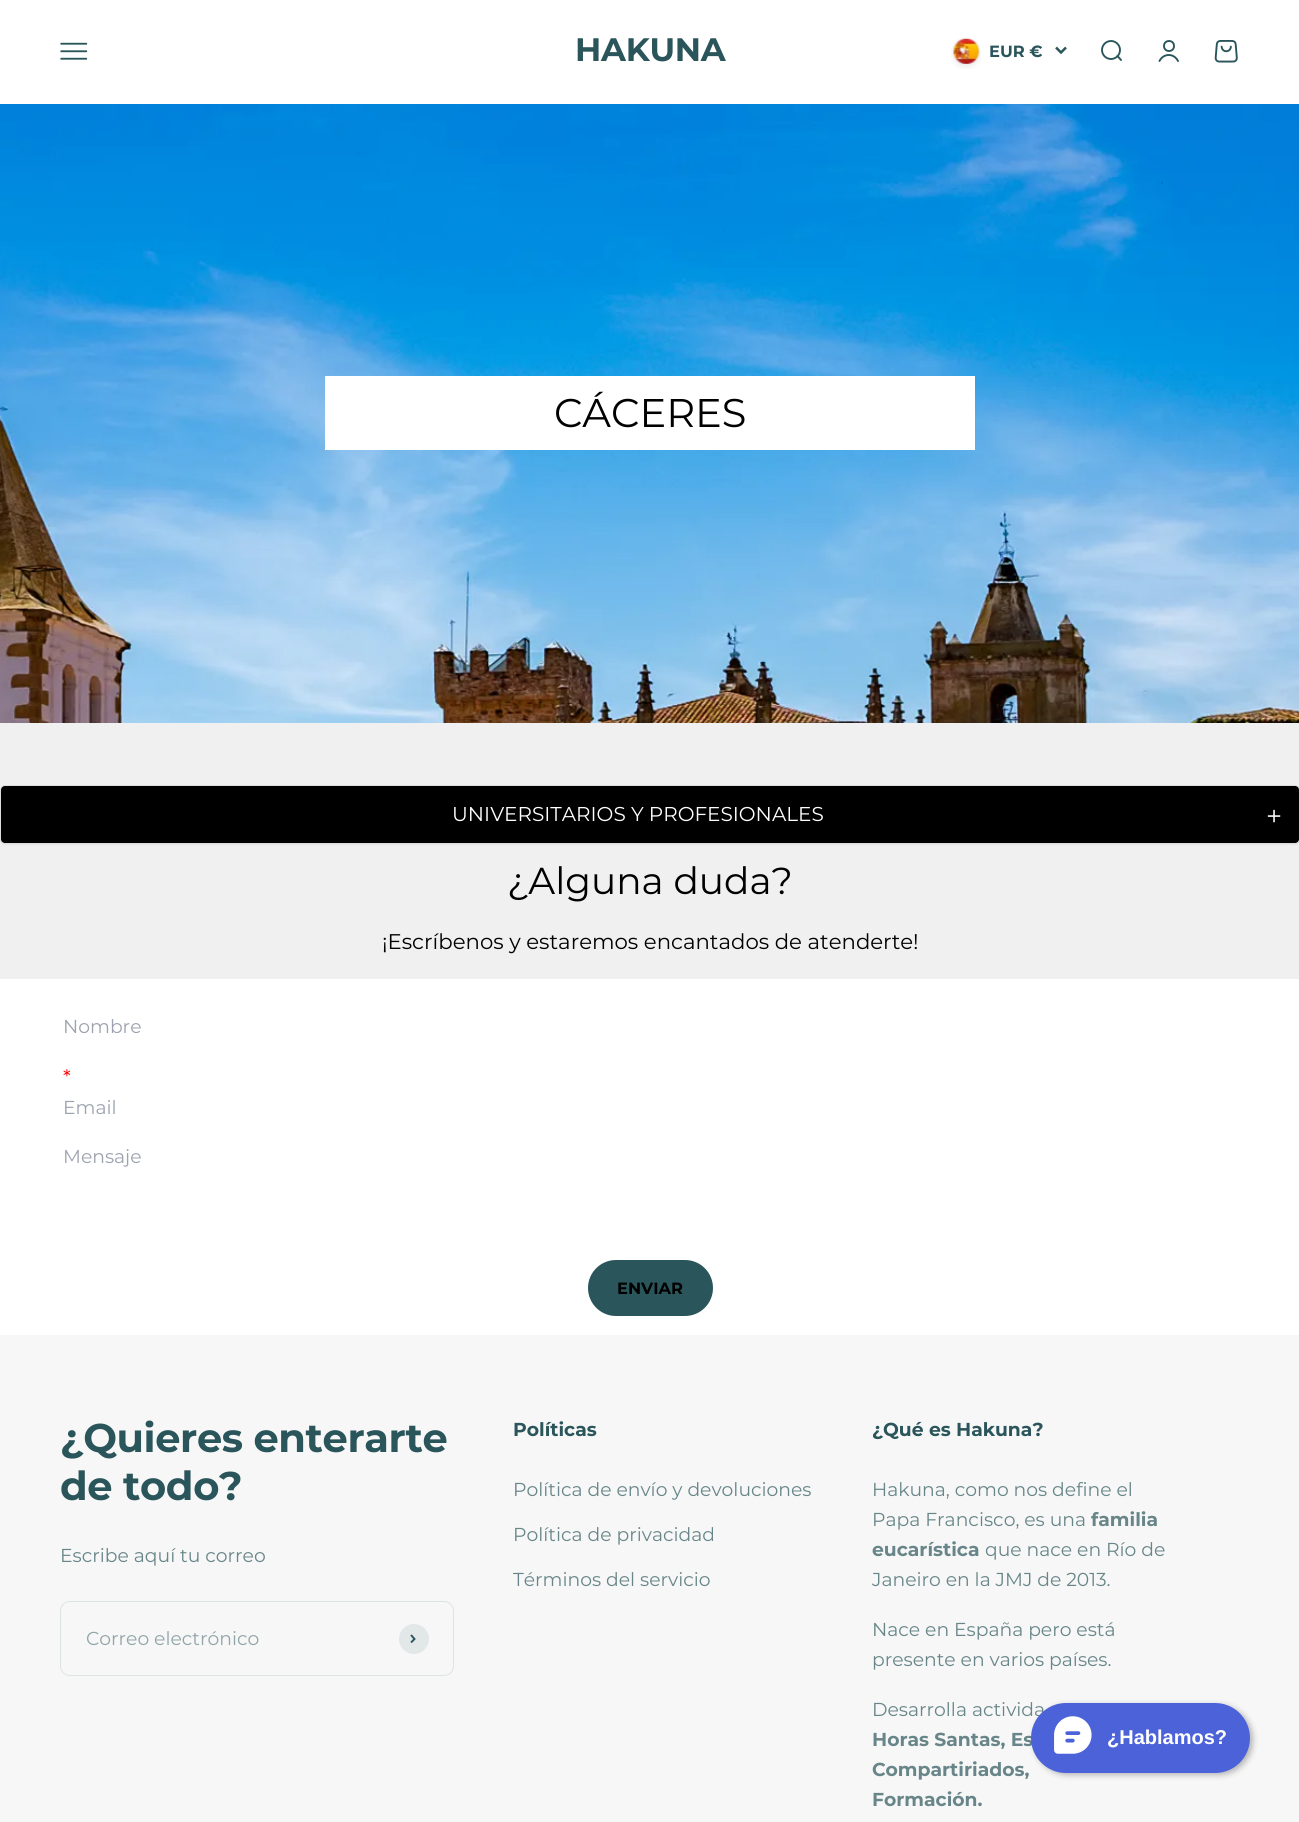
import math
import cairocffi as cairo

surface = cairo.ImageSurface(cairo.FORMAT_RGB24, 1299, 1822)
cr = cairo.Context(surface)
options = cairo.FontOptions()
options.set_hint_metrics(cairo.HINT_METRICS_OFF)
options.set_hint_style(cairo.HINT_STYLE_NONE)
cr.set_font_options(options)
cr.set_miter_limit(4)


def use_color(code):
    cr.set_source_rgb(*(v / 255 for v in bytes.fromhex(code[-6:])))


def spaced_text(x, y, s, letter, word):
    cr.move_to(x, y)
    for ch in s:
        cr.show_text(ch)
        cr.rel_move_to(letter + word * (ch == ' '), 0)


def round_rect(x, y, w, h, r):
    cr.new_sub_path()
    for i, (u, v) in enumerate([(x + w - r, y + h - r), (x + r, y + h - r), (x + r, y + r), (x + w - r, y + r)]):
        cr.arc(u, v, r, i * math.pi / 2, (i + 1) * math.pi / 2)
    cr.close_path()


def shadow(x, y, w, h, r, blur, alpha):
    cr.push_group_with_content(cairo.CONTENT_ALPHA)
    cr.set_operator(cairo.OPERATOR_SOURCE)
    for i in range(15, -16, -2):
        e = blur * i / 6
        if min(w, h) + 2 * e > 0:
            cr.set_source_rgba(0, 0, 0, alpha * math.erfc((i - 1) / 8.5) / 2)
            round_rect(x - e, y - e, w + 2 * e, h + 2 * e, max(0, min(r + e + blur * .6, min(w, h) / 2 + e)))
            cr.fill()
    cr.mask(cr.pop_group())


def picture(path, x, y, w, h):
    cr.save()
    cr.set_source_surface(cairo.ImageSurface.create_from_png(path), x, y)
    cr.rectangle(x, y, w, h)
    cr.fill()
    cr.restore()


use_color("#f0f0f0")
cr.paint()
use_color("#ffffff")
cr.rectangle(0, 0, 1299, 104)
cr.fill()
picture("img1.png", 60, 42, 28, 18)
cr.select_font_face("Montserrat", cairo.FONT_SLANT_NORMAL, cairo.FONT_WEIGHT_BOLD)
cr.set_font_size(32.5)
use_color("#2a555a")
spaced_text(575, 61, "HAKUNA", -0.25, 0)
picture("img2.png", 951, 38, 30, 31)
cr.set_font_size(16.25)
cr.move_to(989, 57)
cr.show_text("EUR €")
cr.new_path()
cr.move_to(1056, 47.5)
cr.line_to(1061, 52.5)
cr.line_to(1066, 47.5)
cr.set_line_width(2.5)
cr.stroke()
cr.arc(1111, 50, 9, 0, 2 * math.pi)
cr.set_line_width(1.9)
cr.stroke()
cr.new_path()
cr.move_to(1117.5, 56)
cr.line_to(1121, 60)
cr.set_line_cap(cairo.LINE_CAP_ROUND)
cr.set_line_join(cairo.LINE_JOIN_ROUND)
cr.stroke()
cr.arc(1169, 46, 5, 0, 2 * math.pi)
cr.set_line_cap(cairo.LINE_CAP_BUTT)
cr.set_line_join(cairo.LINE_JOIN_MITER)
cr.stroke()
cr.new_path()
cr.move_to(1159.5, 61)
cr.curve_to(1163.5, 53, 1174, 53, 1178, 61)
cr.set_line_cap(cairo.LINE_CAP_ROUND)
cr.stroke()
picture("img3.png", 1214, 40, 24, 23)
picture("img4.png", 0, 104, 1299, 619)
use_color("#ffffff")
cr.rectangle(325, 376, 650, 74)
cr.fill()
cr.select_font_face("Montserrat Thin")
cr.set_font_size(40)
use_color("#000000")
cr.move_to(554, 427)
cr.show_text("CÁCERES")
use_color("#000000")
shadow(0, 786, 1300, 59, 5, 0.5, 0.05)
round_rect(0.5, 785.5, 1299, 58, 4.5)
use_color("#dddddd")
cr.set_line_width(1)
cr.set_line_cap(cairo.LINE_CAP_BUTT)
cr.stroke()
use_color("#000000")
round_rect(1, 786, 1298, 57, 4)
cr.fill()
cr.set_font_size(20)
use_color("#ffffff")
cr.move_to(452, 821)
cr.show_text("UNIVERSITARIOS Y PROFESIONALES")
cr.select_font_face("WenQuanYi Zen Hei Medium")
cr.set_font_size(24)
cr.move_to(1262, 823)
cr.show_text("＋")
cr.select_font_face("Montserrat Thin")
cr.set_font_size(37.5)
use_color("#000000")
cr.move_to(507, 894)
cr.show_text("¿Alguna duda?")
cr.set_font_size(21.25)
cr.move_to(382, 949)
cr.show_text("¡Escríbenos y estaremos encantados de atenderte!")
use_color("#ffffff")
cr.rectangle(0, 979, 1299, 356)
cr.fill()
cr.set_font_size(18.75)
use_color("#9ca3af")
cr.move_to(63, 1033)
cr.show_text("Nombre")
cr.set_font_size(20)
use_color("#ff0000")
cr.move_to(63, 1084)
cr.show_text("*")
cr.set_font_size(18.75)
use_color("#9ca3af")
cr.move_to(63, 1114)
cr.show_text("Email")
cr.move_to(63, 1163)
cr.show_text("Mensaje")
use_color("#2a555a")
round_rect(588, 1260, 125, 56, 28)
cr.fill()
cr.select_font_face("Montserrat", cairo.FONT_SLANT_NORMAL, cairo.FONT_WEIGHT_BOLD)
cr.set_font_size(16.25)
use_color("#000000")
cr.move_to(617, 1294)
cr.show_text("ENVIAR")
use_color("#f7f7f7")
cr.rectangle(0, 1335, 1299, 487)
cr.fill()
cr.set_font_size(40)
use_color("#2a555a")
spaced_text(60, 1452, "¿Quieres enterarte", -0.4, 0)
spaced_text(60, 1500, "de todo?", -0.4, 0)
cr.select_font_face("Montserrat Thin")
cr.set_font_size(18.75)
use_color("#688689")
cr.move_to(60, 1562)
cr.show_text("Escribe aquí tu correo")
round_rect(60.5, 1601.5, 393, 74, 9.5)
use_color("#dee4e4")
cr.stroke()
use_color("#91a6a9")
cr.move_to(86, 1645)
cr.show_text("Correo electrónico")
use_color("#e2e7e7")
cr.new_path()
cr.arc(414, 1639, 15, 0, 2 * math.pi)
cr.fill()
cr.new_path()
cr.move_to(411, 1642.5)
cr.line_to(414.5, 1639)
cr.line_to(411, 1635)
use_color("#2a555a")
cr.set_line_width(1.9)
cr.stroke()
cr.select_font_face("Montserrat", cairo.FONT_SLANT_NORMAL, cairo.FONT_WEIGHT_BOLD)
cr.move_to(513, 1436)
cr.show_text("Políticas")
cr.select_font_face("Montserrat Thin")
use_color("#688689")
cr.move_to(513, 1496)
cr.show_text("Política de envío y devoluciones")
cr.move_to(513, 1541)
cr.show_text("Política de privacidad")
cr.move_to(513, 1586)
cr.show_text("Términos del servicio")
cr.select_font_face("Montserrat", cairo.FONT_SLANT_NORMAL, cairo.FONT_WEIGHT_BOLD)
use_color("#2a555a")
cr.move_to(872, 1436)
cr.show_text("¿Qué es Hakuna?")
cr.select_font_face("Montserrat Thin")
use_color("#688689")
cr.move_to(872, 1496)
cr.show_text("Hakuna, como nos define el")
cr.move_to(872, 1526)
cr.show_text("Papa Francisco, es una")
cr.select_font_face("Montserrat", cairo.FONT_SLANT_NORMAL, cairo.FONT_WEIGHT_BOLD)
cr.move_to(1091, 1526)
cr.show_text("familia")
cr.move_to(872, 1556)
cr.show_text("eucarística")
cr.select_font_face("Montserrat Thin")
cr.move_to(985, 1556)
cr.show_text("que nace en Río de")
cr.move_to(872, 1586)
cr.show_text("Janeiro en la JMJ de 2013.")
cr.move_to(872, 1636)
cr.show_text("Nace en España pero está")
cr.move_to(872, 1666)
cr.show_text("presente en varios países.")
cr.move_to(872, 1716)
cr.show_text("Desarrolla activida")
cr.select_font_face("Montserrat", cairo.FONT_SLANT_NORMAL, cairo.FONT_WEIGHT_BOLD)
cr.move_to(872, 1746)
cr.show_text("Horas Santas, Es")
cr.move_to(872, 1776)
cr.show_text("Compartiriados,")
cr.move_to(872, 1806)
cr.show_text("Formación.")
use_color("#000000")
shadow(1034, 1705, 219, 70, 35, 3, 0.27)
use_color("#4c62d9")
round_rect(1031, 1703, 219, 70, 35)
cr.fill()
picture("img5.png", 1054, 1716, 38, 38)
cr.select_font_face("Liberation Sans", cairo.FONT_SLANT_NORMAL, cairo.FONT_WEIGHT_BOLD)
cr.set_font_size(20)
use_color("#ffffff")
cr.move_to(1107, 1744)
cr.show_text("¿Hablamos?")
surface.write_to_png("result.png")
